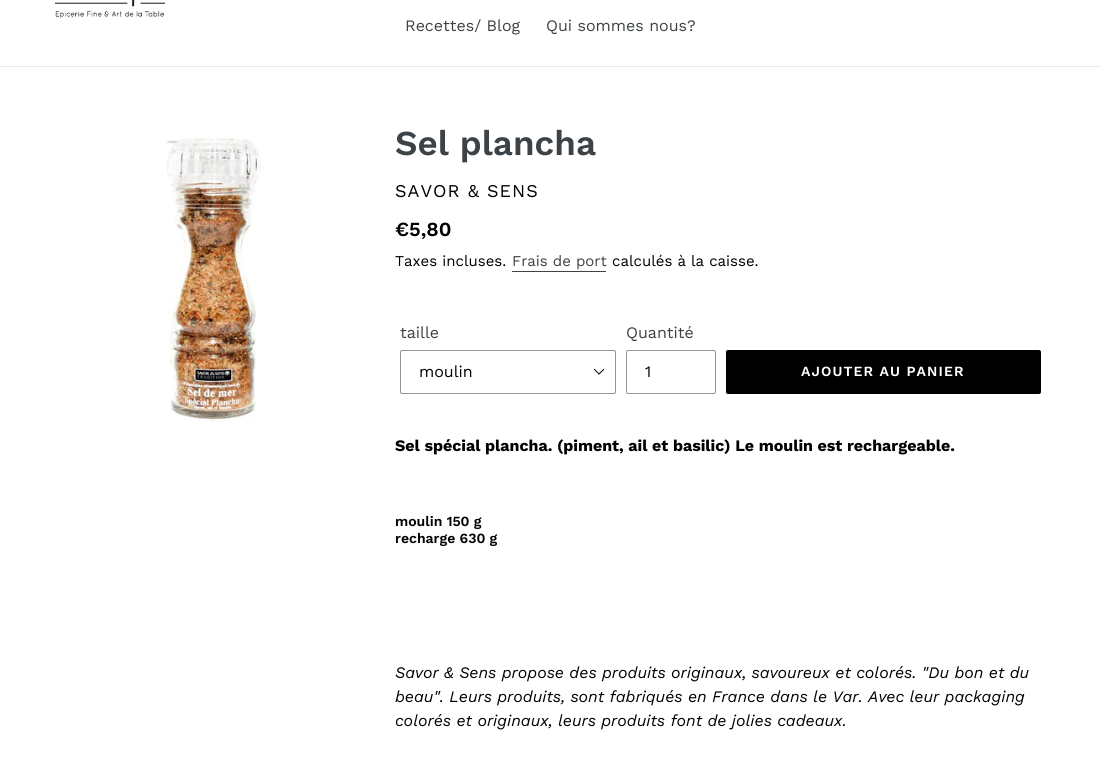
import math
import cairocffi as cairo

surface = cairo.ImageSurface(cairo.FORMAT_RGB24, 1101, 782)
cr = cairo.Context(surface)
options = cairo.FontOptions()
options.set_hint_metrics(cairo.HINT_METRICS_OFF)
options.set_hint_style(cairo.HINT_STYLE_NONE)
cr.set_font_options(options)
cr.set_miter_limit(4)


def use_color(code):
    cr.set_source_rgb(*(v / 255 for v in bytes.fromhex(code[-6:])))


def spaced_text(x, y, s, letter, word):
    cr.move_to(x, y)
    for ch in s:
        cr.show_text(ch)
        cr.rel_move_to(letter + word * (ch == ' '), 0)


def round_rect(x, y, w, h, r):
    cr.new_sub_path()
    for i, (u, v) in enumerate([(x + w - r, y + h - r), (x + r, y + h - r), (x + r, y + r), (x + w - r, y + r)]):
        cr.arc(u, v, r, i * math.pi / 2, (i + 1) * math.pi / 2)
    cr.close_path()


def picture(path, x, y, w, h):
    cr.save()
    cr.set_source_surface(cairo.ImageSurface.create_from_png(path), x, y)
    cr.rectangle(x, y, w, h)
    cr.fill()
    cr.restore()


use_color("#ffffff")
cr.paint()
use_color("#e8e9eb")
cr.rectangle(0, 66, 1101, 1)
cr.fill()
picture("img1.png", 55, 0, 110, 18)
cr.select_font_face("Work Sans")
cr.set_font_size(16)
use_color("#3d4246")
cr.move_to(405, 31)
cr.show_text("Recettes/ Blog")
cr.move_to(546, 31)
cr.show_text("Qui sommes nous?")
picture("img2.png", 166, 136, 95, 286)
cr.select_font_face("Work Sans SemiBold")
cr.set_font_size(35)
cr.move_to(395, 155)
cr.show_text("Sel plancha")
cr.select_font_face("Work Sans")
cr.set_font_size(18)
use_color("#000000")
spaced_text(395, 197, "SAVOR & SENS", 1, 0)
cr.select_font_face("Work Sans SemiBold")
cr.set_font_size(20)
cr.move_to(395, 236)
cr.show_text("€5,80")
cr.select_font_face("Work Sans")
cr.set_font_size(15)
cr.move_to(395, 266)
cr.show_text("Taxes incluses.")
use_color("#3d4246")
cr.move_to(512, 266)
cr.show_text("Frais de port")
cr.rectangle(512, 271, 94, 1)
cr.fill()
use_color("#000000")
cr.move_to(612, 266)
cr.show_text("calculés à la caisse.")
cr.set_font_size(16)
use_color("#3d4246")
cr.move_to(400, 338)
cr.show_text("taille")
picture("img3.png", 593, 368, 12, 7)
round_rect(400.5, 350.5, 215, 43, 1.5)
use_color("#949494")
cr.set_line_width(1)
cr.stroke()
use_color("#000000")
cr.move_to(419, 377)
cr.show_text("moulin")
use_color("#3d4246")
cr.move_to(626, 338)
cr.show_text("Quantité")
round_rect(626.5, 350.5, 89, 43, 1.5)
use_color("#949494")
cr.stroke()
use_color("#000000")
cr.move_to(645, 377)
cr.show_text("1")
round_rect(726, 350, 315, 44, 2)
cr.fill()
cr.select_font_face("Work Sans SemiBold")
cr.set_font_size(14)
use_color("#ffffff")
spaced_text(801, 376, "AJOUTER AU PANIER", 1.1, 0)
cr.select_font_face("Work Sans", cairo.FONT_SLANT_NORMAL, cairo.FONT_WEIGHT_BOLD)
cr.set_font_size(16)
use_color("#000000")
cr.move_to(395, 451)
cr.show_text("Sel spécial plancha. (piment, ail et basilic) Le moulin est rechargeable.")
cr.select_font_face("Work Sans SemiBold")
cr.set_font_size(14)
cr.move_to(395, 526)
cr.show_text("moulin 150 g")
cr.move_to(395, 543)
cr.show_text("recharge 630 g")
cr.select_font_face("Work Sans", cairo.FONT_SLANT_ITALIC)
cr.set_font_size(16)
cr.move_to(395, 678)
cr.show_text("Savor & Sens propose des produits originaux, savoureux et colorés. \"Du bon et du")
cr.move_to(395, 702)
cr.show_text("beau\". Leurs produits, sont fabriqués en France dans le Var. Avec leur packaging")
cr.move_to(395, 726)
cr.show_text("colorés et originaux, leurs produits font de jolies cadeaux.")
surface.write_to_png("result.png")
